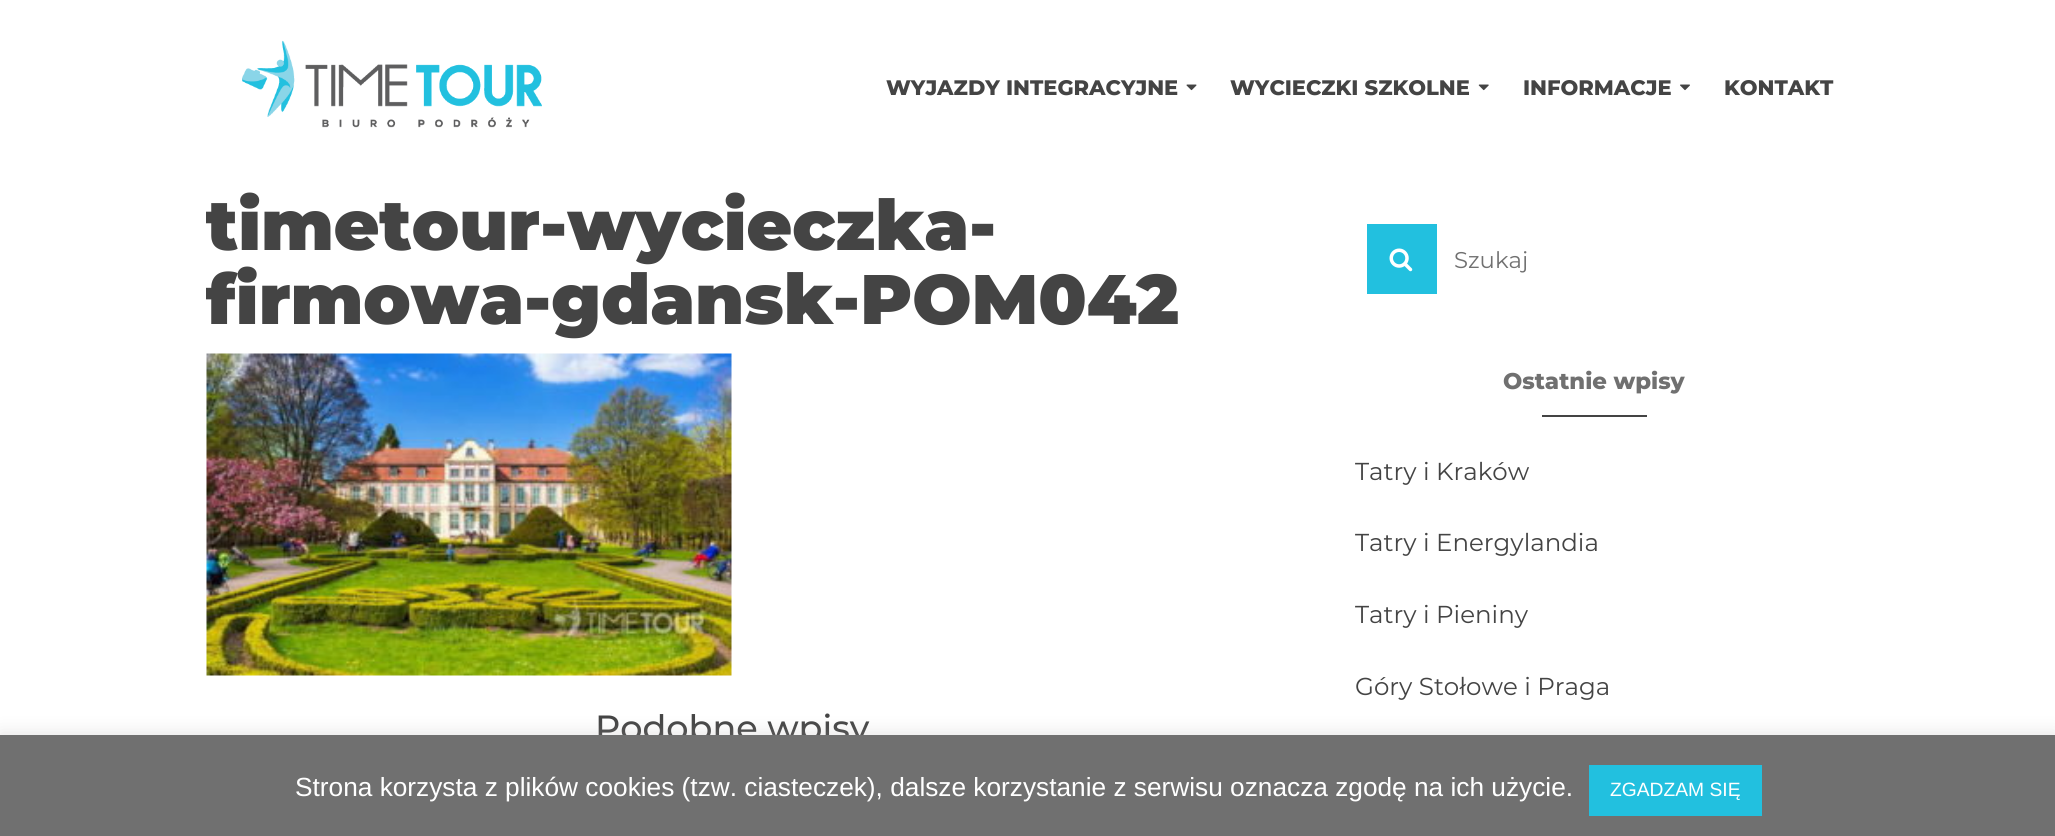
import math
import cairocffi as cairo

surface = cairo.ImageSurface(cairo.FORMAT_RGB24, 2055, 836)
cr = cairo.Context(surface)
options = cairo.FontOptions()
options.set_hint_metrics(cairo.HINT_METRICS_OFF)
options.set_hint_style(cairo.HINT_STYLE_NONE)
cr.set_font_options(options)
cr.set_miter_limit(4)


def use_color(code):
    cr.set_source_rgb(*(v / 255 for v in bytes.fromhex(code[-6:])))


def round_rect(x, y, w, h, r):
    cr.new_sub_path()
    for i, (u, v) in enumerate([(x + w - r, y + h - r), (x + r, y + h - r), (x + r, y + r), (x + w - r, y + r)]):
        cr.arc(u, v, r, i * math.pi / 2, (i + 1) * math.pi / 2)
    cr.close_path()


def shadow(x, y, w, h, r, blur, alpha):
    cr.push_group_with_content(cairo.CONTENT_ALPHA)
    cr.set_operator(cairo.OPERATOR_SOURCE)
    for i in range(15, -16, -2):
        e = blur * i / 6
        if min(w, h) + 2 * e > 0:
            cr.set_source_rgba(0, 0, 0, alpha * math.erfc((i - 1) / 8.5) / 2)
            round_rect(x - e, y - e, w + 2 * e, h + 2 * e, max(0, min(r + e + blur * .6, min(w, h) / 2 + e)))
            cr.fill()
    cr.mask(cr.pop_group())


def picture(path, x, y, w, h):
    cr.save()
    cr.set_source_surface(cairo.ImageSurface.create_from_png(path), x, y)
    cr.rectangle(x, y, w, h)
    cr.fill()
    cr.restore()


use_color("#ffffff")
cr.paint()
picture("img1.png", 242, 40, 300, 88)
cr.select_font_face("Montserrat ExtraBold")
cr.set_font_size(21)
use_color("#444444")
cr.move_to(886, 95)
cr.show_text("WYJAZDY INTEGRACYJNE")
picture("img2.png", 1186, 84, 11, 7)
cr.move_to(1230, 95)
cr.show_text("WYCIECZKI SZKOLNE")
picture("img3.png", 1478, 84, 11, 7)
cr.move_to(1523, 95)
cr.show_text("INFORMACJE")
picture("img4.png", 1680, 84, 10, 7)
cr.move_to(1724, 95)
cr.show_text("KONTAKT")
cr.select_font_face("Montserrat Black")
cr.set_font_size(70)
cr.move_to(206, 250)
cr.show_text("timetour-wycieczka-")
cr.move_to(206, 324)
cr.show_text("firmowa-gdansk-POM042")
picture("img5.png", 206, 353, 526, 323)
cr.select_font_face("Montserrat Medium")
cr.set_font_size(35)
cr.move_to(595, 740)
cr.show_text("Podobne wpisy")
use_color("#22c0df")
cr.rectangle(1367, 224, 70, 70)
cr.fill()
picture("img6.png", 1389, 248, 24, 24)
cr.select_font_face("Montserrat")
cr.set_font_size(22.75)
use_color("#707070")
cr.move_to(1454, 268)
cr.show_text("Szukaj")
cr.select_font_face("Montserrat ExtraBold")
cr.move_to(1503, 389)
cr.show_text("Ostatnie wpisy")
use_color("#444444")
cr.rectangle(1542, 415, 105, 2)
cr.fill()
cr.select_font_face("Montserrat")
cr.set_font_size(24.5)
cr.move_to(1355, 480)
cr.show_text("Tatry i Kraków")
cr.move_to(1355, 551)
cr.show_text("Tatry i Energylandia")
cr.move_to(1355, 623)
cr.show_text("Tatry i Pieniny")
cr.move_to(1355, 695)
cr.show_text("Góry Stołowe i Praga")
use_color("#acabab")
shadow(0, 733, 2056, 102, 0, 9, 0.3)
use_color("#707070")
cr.rectangle(0, 735, 2055, 101)
cr.fill()
cr.select_font_face("Liberation Sans")
cr.set_font_size(26.25)
use_color("#ffffff")
cr.move_to(295, 796)
cr.show_text("Strona korzysta z plików cookies (tzw. ciasteczek), dalsze korzystanie z serwisu oznacza zgodę na ich użycie.")
use_color("#22c0df")
cr.rectangle(1589, 765, 173, 51)
cr.fill()
cr.set_font_size(19.25)
use_color("#ffffff")
cr.move_to(1610, 796)
cr.show_text("ZGADZAM SIĘ")
surface.write_to_png("result.png")
